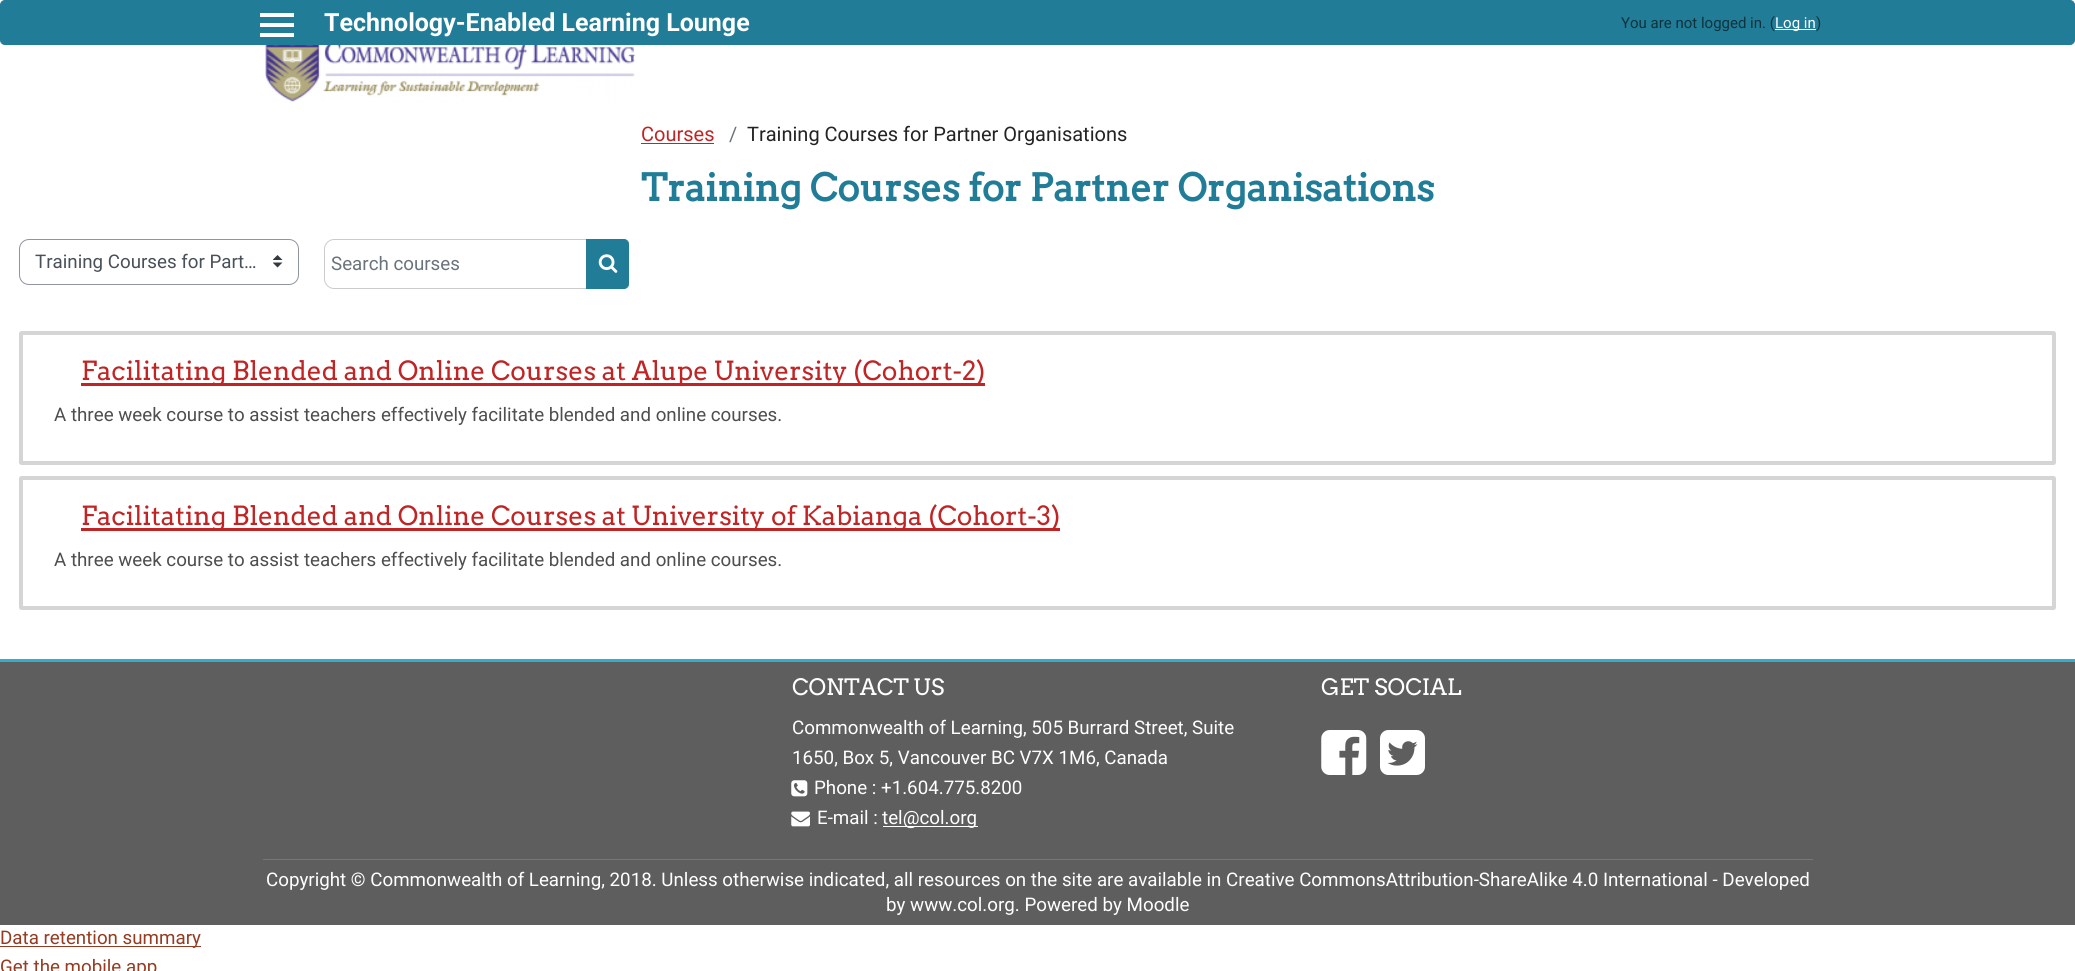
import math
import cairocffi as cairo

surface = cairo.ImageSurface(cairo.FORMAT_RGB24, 2075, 971)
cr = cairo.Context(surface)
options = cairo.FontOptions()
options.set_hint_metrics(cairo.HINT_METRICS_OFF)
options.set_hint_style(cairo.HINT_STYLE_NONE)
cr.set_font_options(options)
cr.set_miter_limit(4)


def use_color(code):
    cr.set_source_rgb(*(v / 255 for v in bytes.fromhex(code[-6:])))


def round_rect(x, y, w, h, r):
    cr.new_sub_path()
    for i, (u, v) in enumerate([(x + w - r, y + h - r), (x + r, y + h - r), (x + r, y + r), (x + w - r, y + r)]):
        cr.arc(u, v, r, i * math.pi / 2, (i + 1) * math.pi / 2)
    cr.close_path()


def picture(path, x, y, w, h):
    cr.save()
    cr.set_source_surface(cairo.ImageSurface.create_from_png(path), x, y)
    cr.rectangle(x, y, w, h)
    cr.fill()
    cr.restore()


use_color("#ffffff")
cr.paint()
use_color("#217d97")
round_rect(0.5, 0.5, 2074, 44, 4.5)
cr.fill_preserve()
cr.set_line_width(1)
cr.stroke()
use_color("#ffffff")
cr.rectangle(260, 13, 34, 4)
cr.fill()
cr.rectangle(260, 23, 34, 4)
cr.fill()
cr.rectangle(260, 33, 34, 4)
cr.fill()
cr.select_font_face("Roboto", cairo.FONT_SLANT_NORMAL, cairo.FONT_WEIGHT_BOLD)
cr.set_font_size(25)
cr.move_to(324, 31)
cr.show_text("Technology-Enabled Learning Lounge")
cr.select_font_face("Roboto")
cr.set_font_size(15)
use_color("#0d323c")
cr.move_to(1621, 28)
cr.show_text("You are not logged in. (")
use_color("#ffffff")
cr.rectangle(1775, 29, 41, 1)
cr.fill()
cr.move_to(1775, 28)
cr.show_text("Log in")
use_color("#0d323c")
cr.move_to(1816, 28)
cr.show_text(")")
picture("img1.png", 265, 45, 371, 57)
cr.set_font_size(20)
use_color("#c02424")
cr.move_to(641, 141)
cr.show_text("Courses")
cr.rectangle(641, 143, 73, 1)
cr.fill()
use_color("#6a737b")
cr.move_to(729, 141)
cr.show_text("/")
use_color("#232323")
cr.move_to(747, 141)
cr.show_text("Training Courses for Partner Organisations")
cr.select_font_face("Arvo", cairo.FONT_SLANT_NORMAL, cairo.FONT_WEIGHT_BOLD)
cr.set_font_size(37.5)
use_color("#217d97")
cr.move_to(641, 201)
cr.show_text("Training Courses for Partner Organisations")
picture("img2.png", 273, 255, 10, 13)
round_rect(19.5, 239.5, 279, 45, 9.5)
use_color("#8f959e")
cr.stroke()
cr.select_font_face("Roboto")
cr.set_font_size(18.75)
use_color("#495057")
cr.move_to(35, 268)
cr.show_text("Training Courses for Part…")
cr.new_path()
cr.move_to(334, 239.5)
cr.line_to(587.5, 239.5)
cr.line_to(587.5, 288.5)
cr.line_to(334, 288.5)
cr.curve_to(329, 288.5, 324.5, 284, 324.5, 279)
cr.line_to(324.5, 249)
cr.curve_to(324.5, 244, 329, 239.5, 334, 239.5)
cr.close_path()
use_color("#cbcbcb")
cr.stroke()
use_color("#6a737b")
cr.move_to(331, 270)
cr.show_text("Search courses")
use_color("#217d97")
cr.new_path()
cr.move_to(586.5, 239.5)
cr.line_to(624, 239.5)
cr.curve_to(626.5, 239.5, 628.5, 241.5, 628.5, 244)
cr.line_to(628.5, 284)
cr.curve_to(628.5, 286.5, 626.5, 288.5, 624, 288.5)
cr.line_to(586.5, 288.5)
cr.close_path()
cr.fill_preserve()
cr.stroke()
picture("img3.png", 598, 254, 20, 19)
round_rect(21, 333, 2033, 130, 0.5)
use_color("#d5d5d5")
cr.set_line_width(4)
cr.stroke()
use_color("#c02424")
cr.rectangle(81, 383, 904, 3)
cr.fill()
cr.select_font_face("Arvo")
cr.set_font_size(26.25)
cr.move_to(81, 380)
cr.show_text("Facilitating Blended and Online Courses at Alupe University (Cohort-2)")
cr.select_font_face("Roboto")
cr.set_font_size(18.75)
use_color("#4e4e4e")
cr.move_to(54, 421)
cr.show_text("A three week course to assist teachers effectively facilitate blended and online courses.")
round_rect(21, 478, 2033, 130, 0.5)
use_color("#d5d5d5")
cr.stroke()
use_color("#c02424")
cr.rectangle(81, 528, 979, 3)
cr.fill()
cr.select_font_face("Arvo")
cr.set_font_size(26.25)
cr.move_to(81, 525)
cr.show_text("Facilitating Blended and Online Courses at University of Kabianga (Cohort-3)")
cr.select_font_face("Roboto")
cr.set_font_size(18.75)
use_color("#4e4e4e")
cr.move_to(54, 566)
cr.show_text("A three week course to assist teachers effectively facilitate blended and online courses.")
use_color("#5e5e5e")
cr.rectangle(0, 662, 2075, 263)
cr.fill()
use_color("#30add1")
cr.rectangle(0, 659, 2075, 3)
cr.fill()
cr.select_font_face("Arvo")
cr.set_font_size(22.5)
use_color("#ffffff")
cr.move_to(792, 695)
cr.show_text("CONTACT US")
cr.select_font_face("Roboto")
cr.set_font_size(18.75)
cr.move_to(792, 734)
cr.show_text("Commonwealth of Learning, 505 Burrard Street, Suite")
cr.move_to(792, 764)
cr.show_text("1650, Box 5, Vancouver BC V7X 1M6, Canada")
picture("img4.png", 791, 780, 17, 17)
cr.move_to(814, 794)
cr.show_text("Phone : +1.604.775.8200")
picture("img5.png", 791, 811, 19, 16)
cr.move_to(817, 824)
cr.show_text("E-mail :")
cr.rectangle(883, 826, 95, 1)
cr.fill()
cr.move_to(882, 824)
cr.show_text("tel@col.org")
cr.select_font_face("Arvo")
cr.set_font_size(22.5)
cr.move_to(1321, 695)
cr.show_text("GET SOCIAL")
picture("img6.png", 1321, 730, 46, 45)
picture("img7.png", 1380, 730, 45, 45)
use_color("#009fe5")
cr.rectangle(263, 859, 1550, 1)
cr.fill()
cr.select_font_face("Roboto")
cr.set_font_size(18.75)
use_color("#ffffff")
cr.move_to(266, 886)
cr.show_text("Copyright © Commonwealth of Learning, 2018. Unless otherwise indicated, all resources on the site are available in Creative CommonsAttribution-ShareAlike 4.0 International - Developed")
cr.move_to(886, 911)
cr.show_text("by www.col.org. Powered by Moodle")
use_color("#943b21")
cr.rectangle(0, 946, 201, 1)
cr.fill()
cr.move_to(0, 944)
cr.show_text("Data retention summary")
cr.move_to(0, 973)
cr.show_text("Get the mobile app")
surface.write_to_png("result.png")
